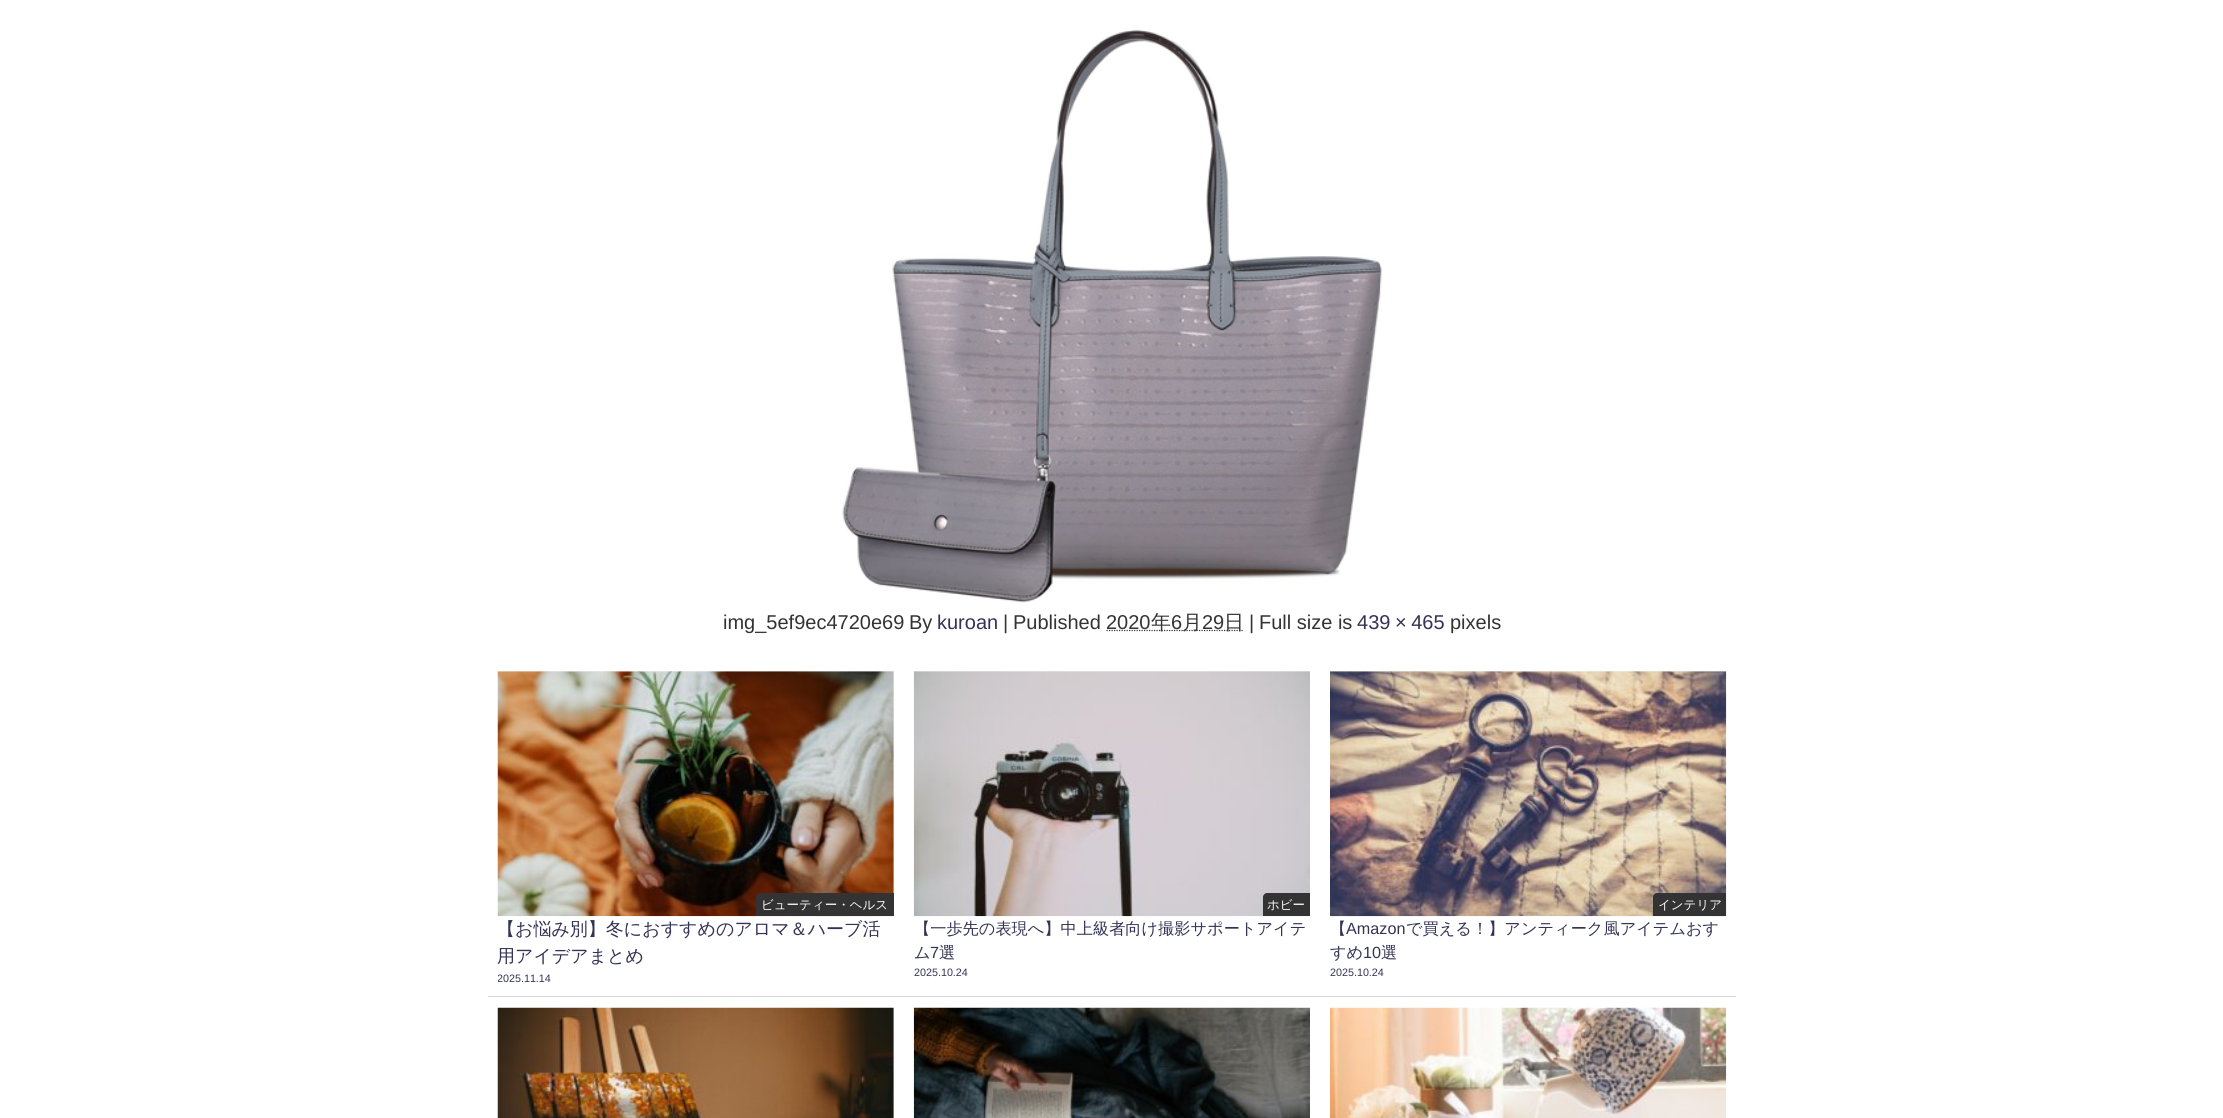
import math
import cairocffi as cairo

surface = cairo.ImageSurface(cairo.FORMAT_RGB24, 2223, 1118)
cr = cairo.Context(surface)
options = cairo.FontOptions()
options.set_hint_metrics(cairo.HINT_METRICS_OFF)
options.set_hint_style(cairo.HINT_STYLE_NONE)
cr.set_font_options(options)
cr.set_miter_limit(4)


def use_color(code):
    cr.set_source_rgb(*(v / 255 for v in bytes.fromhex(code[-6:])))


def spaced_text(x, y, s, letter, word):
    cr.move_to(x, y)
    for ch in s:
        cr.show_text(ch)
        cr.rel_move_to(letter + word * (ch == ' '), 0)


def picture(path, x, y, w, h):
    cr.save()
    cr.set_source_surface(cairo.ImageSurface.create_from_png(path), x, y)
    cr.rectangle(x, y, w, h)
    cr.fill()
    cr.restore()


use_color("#ffffff")
cr.paint()
picture("img1.png", 842, 29, 541, 574)
cr.select_font_face("Liberation Sans")
cr.set_font_size(20)
use_color("#333333")
cr.move_to(723, 629)
cr.show_text("img_5ef9ec4720e69")
cr.move_to(909, 629)
cr.show_text("By")
use_color("#333355")
cr.move_to(937, 629)
cr.show_text("kuroan")
use_color("#333333")
cr.move_to(1003, 629)
cr.show_text("|")
cr.move_to(1013, 629)
cr.show_text("Published")
cr.new_path()
cr.move_to(1106.5, 630.5)
cr.line_to(1244, 630.5)
cr.set_line_width(1.2)
cr.set_dash([1.25, 1.25])
cr.stroke()
cr.move_to(1106, 629)
cr.show_text("2020")
cr.select_font_face("WenQuanYi Zen Hei Medium")
cr.move_to(1151, 629)
cr.show_text("年")
cr.select_font_face("Liberation Sans")
cr.move_to(1171, 629)
cr.show_text("6")
cr.select_font_face("WenQuanYi Zen Hei Medium")
cr.move_to(1182, 629)
cr.show_text("月")
cr.select_font_face("Liberation Sans")
cr.move_to(1202, 629)
cr.show_text("29")
cr.select_font_face("WenQuanYi Zen Hei Medium")
cr.move_to(1224, 629)
cr.show_text("日")
cr.select_font_face("Liberation Sans")
cr.move_to(1249, 629)
cr.show_text("|")
cr.move_to(1259, 629)
cr.show_text("Full size is")
use_color("#333355")
spaced_text(1357, 629, "439 × 465", 0, -1)
use_color("#333333")
cr.move_to(1450, 629)
cr.show_text("pixels")
use_color("#d6d6d6")
cr.rectangle(488, 996, 1248, 1)
cr.fill()
use_color("#eeeeee")
cr.rectangle(498, 671, 396, 222)
cr.fill()
picture("img2.png", 497, 671, 397, 246)
use_color("#333333")
cr.new_path()
cr.move_to(760, 893)
cr.line_to(894, 893)
cr.line_to(894, 916)
cr.line_to(756, 916)
cr.line_to(756, 897)
cr.curve_to(756, 895, 758, 893, 760, 893)
cr.close_path()
cr.fill()
cr.select_font_face("WenQuanYi Zen Hei Medium")
cr.set_font_size(12.5)
use_color("#ffffff")
cr.move_to(761, 909)
cr.show_text("ビューティー・ヘルス")
cr.set_font_size(18)
use_color("#333355")
cr.move_to(497, 935)
cr.show_text("【お悩み別】冬におすすめのアロマ＆ハーブ活")
cr.move_to(497, 962)
cr.show_text("用アイデアまとめ")
cr.save()
cr.rectangle(498, 916, 396, 70)
cr.clip()
cr.select_font_face("Liberation Sans")
cr.set_font_size(10.75)
cr.move_to(497, 982)
cr.show_text("2025.11.14")
cr.restore()
use_color("#eeeeee")
cr.rectangle(914, 671, 396, 1)
cr.fill()
picture("img3.png", 913, 671, 397, 246)
use_color("#333333")
cr.new_path()
cr.move_to(1267, 893)
cr.line_to(1310, 893)
cr.line_to(1310, 916)
cr.line_to(1263, 916)
cr.line_to(1263, 897)
cr.curve_to(1263, 895, 1265, 893, 1267, 893)
cr.close_path()
cr.fill()
cr.set_font_size(12.5)
use_color("#ffffff")
cr.move_to(1267, 909)
cr.show_text("ホビー")
cr.set_font_size(16.2)
use_color("#333355")
cr.move_to(914, 934)
cr.show_text("【一歩先の表現へ】中上級者向け撮影サポートアイテ")
cr.move_to(914, 958)
cr.show_text("ム")
cr.select_font_face("Liberation Sans")
cr.move_to(930, 958)
cr.show_text("7")
cr.select_font_face("WenQuanYi Zen Hei Medium")
cr.move_to(939, 958)
cr.show_text("選")
cr.select_font_face("Liberation Sans")
cr.set_font_size(10.75)
cr.move_to(914, 976)
cr.show_text("2025.10.24")
use_color("#eeeeee")
cr.rectangle(1330, 671, 396, 1)
cr.fill()
picture("img4.png", 1330, 671, 397, 246)
use_color("#333333")
cr.new_path()
cr.move_to(1657, 893)
cr.line_to(1726, 893)
cr.line_to(1726, 916)
cr.line_to(1653, 916)
cr.line_to(1653, 897)
cr.curve_to(1653, 895, 1655, 893, 1657, 893)
cr.close_path()
cr.fill()
cr.select_font_face("WenQuanYi Zen Hei Medium")
cr.set_font_size(12.5)
use_color("#ffffff")
cr.move_to(1658, 909)
cr.show_text("インテリア")
cr.set_font_size(16.2)
use_color("#333355")
cr.move_to(1330, 934)
cr.show_text("【")
cr.select_font_face("Liberation Sans")
cr.move_to(1346, 934)
cr.show_text("Amazon")
cr.select_font_face("WenQuanYi Zen Hei Medium")
cr.move_to(1406, 934)
cr.show_text("で買える！】アンティーク風アイテムおす")
cr.move_to(1330, 958)
cr.show_text("すめ")
cr.select_font_face("Liberation Sans")
cr.move_to(1363, 958)
cr.show_text("10")
cr.select_font_face("WenQuanYi Zen Hei Medium")
cr.move_to(1381, 958)
cr.show_text("選")
cr.select_font_face("Liberation Sans")
cr.set_font_size(10.75)
cr.move_to(1330, 976)
cr.show_text("2025.10.24")
use_color("#eeeeee")
cr.rectangle(893, 1008, 1, 110)
cr.fill()
picture("img5.png", 497, 1007, 397, 111)
picture("img6.png", 913, 1007, 397, 111)
picture("img7.png", 1330, 1007, 397, 111)
surface.write_to_png("result.png")
